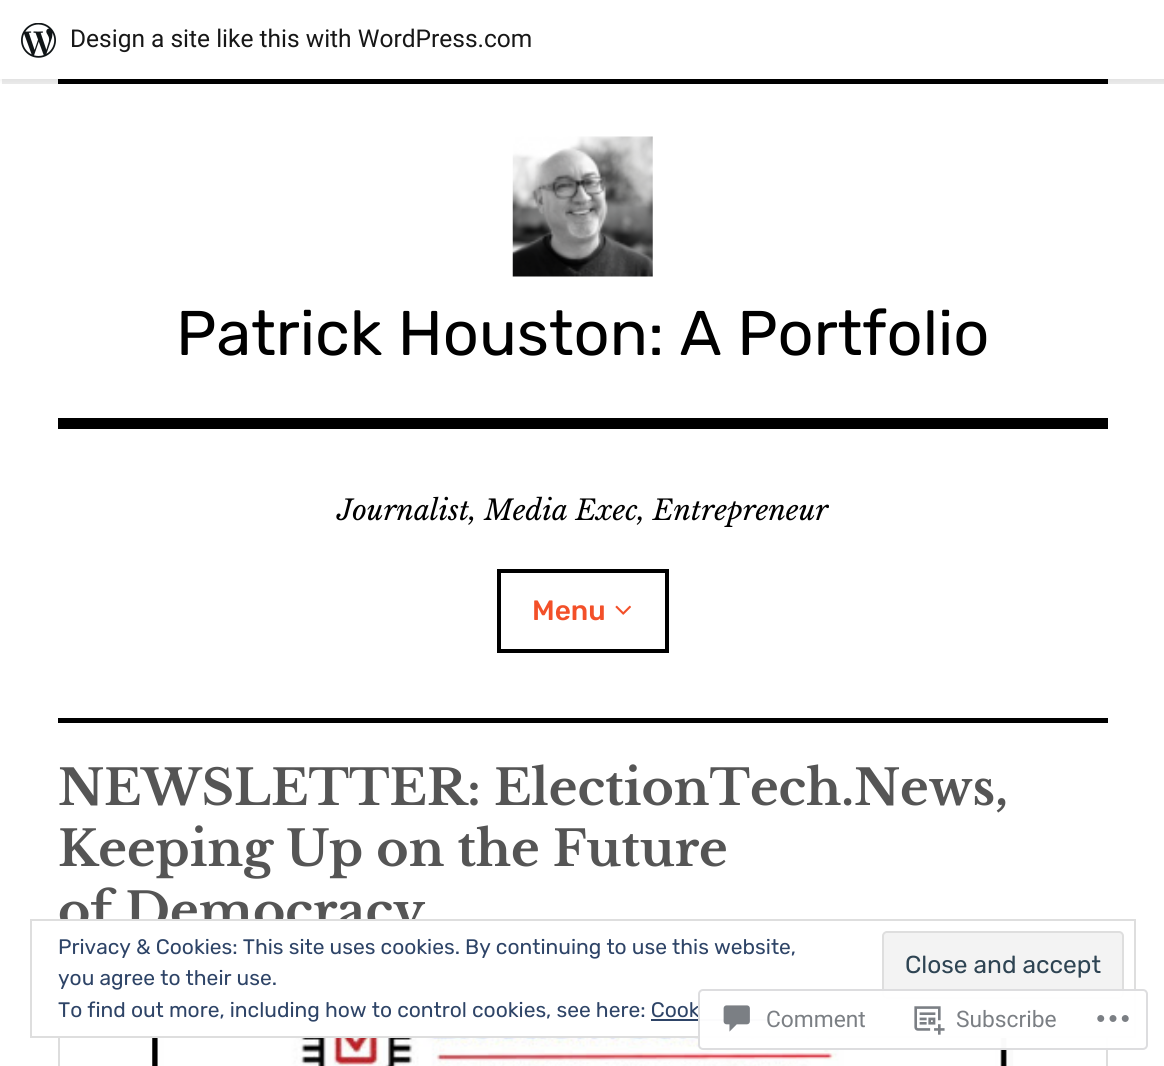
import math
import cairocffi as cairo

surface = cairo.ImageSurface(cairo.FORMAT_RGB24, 1164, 1066)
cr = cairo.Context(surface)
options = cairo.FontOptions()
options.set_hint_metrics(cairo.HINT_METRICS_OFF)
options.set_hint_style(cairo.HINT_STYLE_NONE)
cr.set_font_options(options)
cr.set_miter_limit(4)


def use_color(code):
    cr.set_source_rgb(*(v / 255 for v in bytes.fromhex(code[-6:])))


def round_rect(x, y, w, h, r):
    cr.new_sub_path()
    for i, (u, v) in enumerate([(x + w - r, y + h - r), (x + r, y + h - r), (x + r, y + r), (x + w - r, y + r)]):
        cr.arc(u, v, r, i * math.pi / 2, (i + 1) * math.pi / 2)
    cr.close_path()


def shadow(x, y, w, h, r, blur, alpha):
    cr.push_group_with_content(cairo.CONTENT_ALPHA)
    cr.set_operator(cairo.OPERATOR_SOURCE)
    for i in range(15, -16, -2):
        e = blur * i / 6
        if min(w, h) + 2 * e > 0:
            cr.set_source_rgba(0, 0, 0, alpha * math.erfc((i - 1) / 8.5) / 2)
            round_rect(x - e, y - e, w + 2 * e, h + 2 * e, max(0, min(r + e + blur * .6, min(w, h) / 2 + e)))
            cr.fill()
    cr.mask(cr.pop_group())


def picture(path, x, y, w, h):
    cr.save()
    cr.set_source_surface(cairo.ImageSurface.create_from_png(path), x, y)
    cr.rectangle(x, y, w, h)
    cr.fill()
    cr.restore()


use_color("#ffffff")
cr.paint()
use_color("#000000")
cr.rectangle(58, 79, 1050, 5)
cr.fill()
use_color("#000000")
shadow(0, 2, 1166, 79, 0, 2, 0.05)
cr.set_source_rgba(0, 0, 0, 0.08)
cr.new_path()
cr.move_to(2, 79)
cr.line_to(2, 84)
cr.line_to(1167, 84)
cr.line_to(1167, 5)
cr.line_to(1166, 5)
cr.line_to(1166, 79)
cr.close_path()
cr.fill()
use_color("#ffffff")
cr.rectangle(0, 0, 1164, 79)
cr.fill()
picture("img1.png", 21, 23, 35, 35)
cr.select_font_face("Roboto")
cr.set_font_size(24.5)
use_color("#171717")
cr.move_to(70, 47)
cr.show_text("Design a site like this with WordPress.com")
use_color("#000000")
cr.rectangle(58, 418, 1050, 11)
cr.fill()
picture("img2.png", 512, 136, 141, 141)
cr.select_font_face("Rubik")
cr.set_font_size(63)
cr.move_to(176, 355)
cr.show_text("Patrick Houston: A Portfolio")
cr.select_font_face("Libre Baskerville", cairo.FONT_SLANT_ITALIC)
cr.set_font_size(28)
cr.move_to(337, 520)
cr.show_text("Journalist, Media Exec, Entrepreneur")
cr.rectangle(499, 571, 168, 80)
cr.set_line_width(4)
cr.stroke()
cr.select_font_face("Rubik Medium")
use_color("#f35029")
cr.move_to(532, 620)
cr.show_text("Menu")
picture("img3.png", 615, 605, 16, 10)
use_color("#000000")
cr.rectangle(58, 718, 1050, 5)
cr.fill()
cr.select_font_face("Libre Baskerville", cairo.FONT_SLANT_NORMAL, cairo.FONT_WEIGHT_BOLD)
cr.set_font_size(49)
use_color("#555555")
cr.move_to(58, 805)
cr.show_text("NEWSLETTER: ElectionTech.News,")
cr.move_to(58, 866)
cr.show_text("Keeping Up on the Future")
cr.move_to(58, 928)
cr.show_text("of Democracy")
cr.rectangle(59, 978, 1048, 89)
use_color("#dddddd")
cr.set_line_width(2)
cr.stroke()
picture("img4.png", 152, 1038, 862, 28)
use_color("#ffffff")
cr.rectangle(58, 921, 1050, 115)
cr.fill()
cr.rectangle(31, 920, 1104, 117)
use_color("#dedede")
cr.stroke()
cr.select_font_face("Rubik")
cr.set_font_size(21)
use_color("#2e4467")
cr.move_to(58, 954)
cr.show_text("Privacy & Cookies: This site uses cookies. By continuing to use this website,")
cr.move_to(58, 985)
cr.show_text("you agree to their use.")
use_color("#f3f3f3")
round_rect(883, 932, 240, 66, 4)
cr.fill_preserve()
use_color("#dedede")
cr.stroke()
cr.set_font_size(24.5)
use_color("#2e4453")
cr.move_to(905, 973)
cr.show_text("Close and accept")
cr.set_font_size(21)
use_color("#2e4467")
cr.move_to(58, 1017)
cr.show_text("To find out more, including how to control cookies, see here: Cook")
cr.rectangle(651, 1019, 130, 2)
cr.fill()
cr.set_source_rgba(1, 1, 1, 0.98)
round_rect(698, 989, 450, 61, 5)
cr.fill()
round_rect(699, 990, 448, 59, 4)
cr.set_source_rgba(0.863, 0.863, 0.871, 0.98)
cr.stroke()
picture("img5.png", 723, 1005, 27, 27)
cr.select_font_face("Roboto")
cr.set_font_size(22.75)
use_color("#7b7f84")
cr.move_to(766, 1027)
cr.show_text("Comment")
picture("img6.png", 914, 1006, 31, 29)
cr.move_to(956, 1027)
cr.show_text("Subscribe")
picture("img7.png", 1097, 1015, 32, 7)
surface.write_to_png("result.png")
